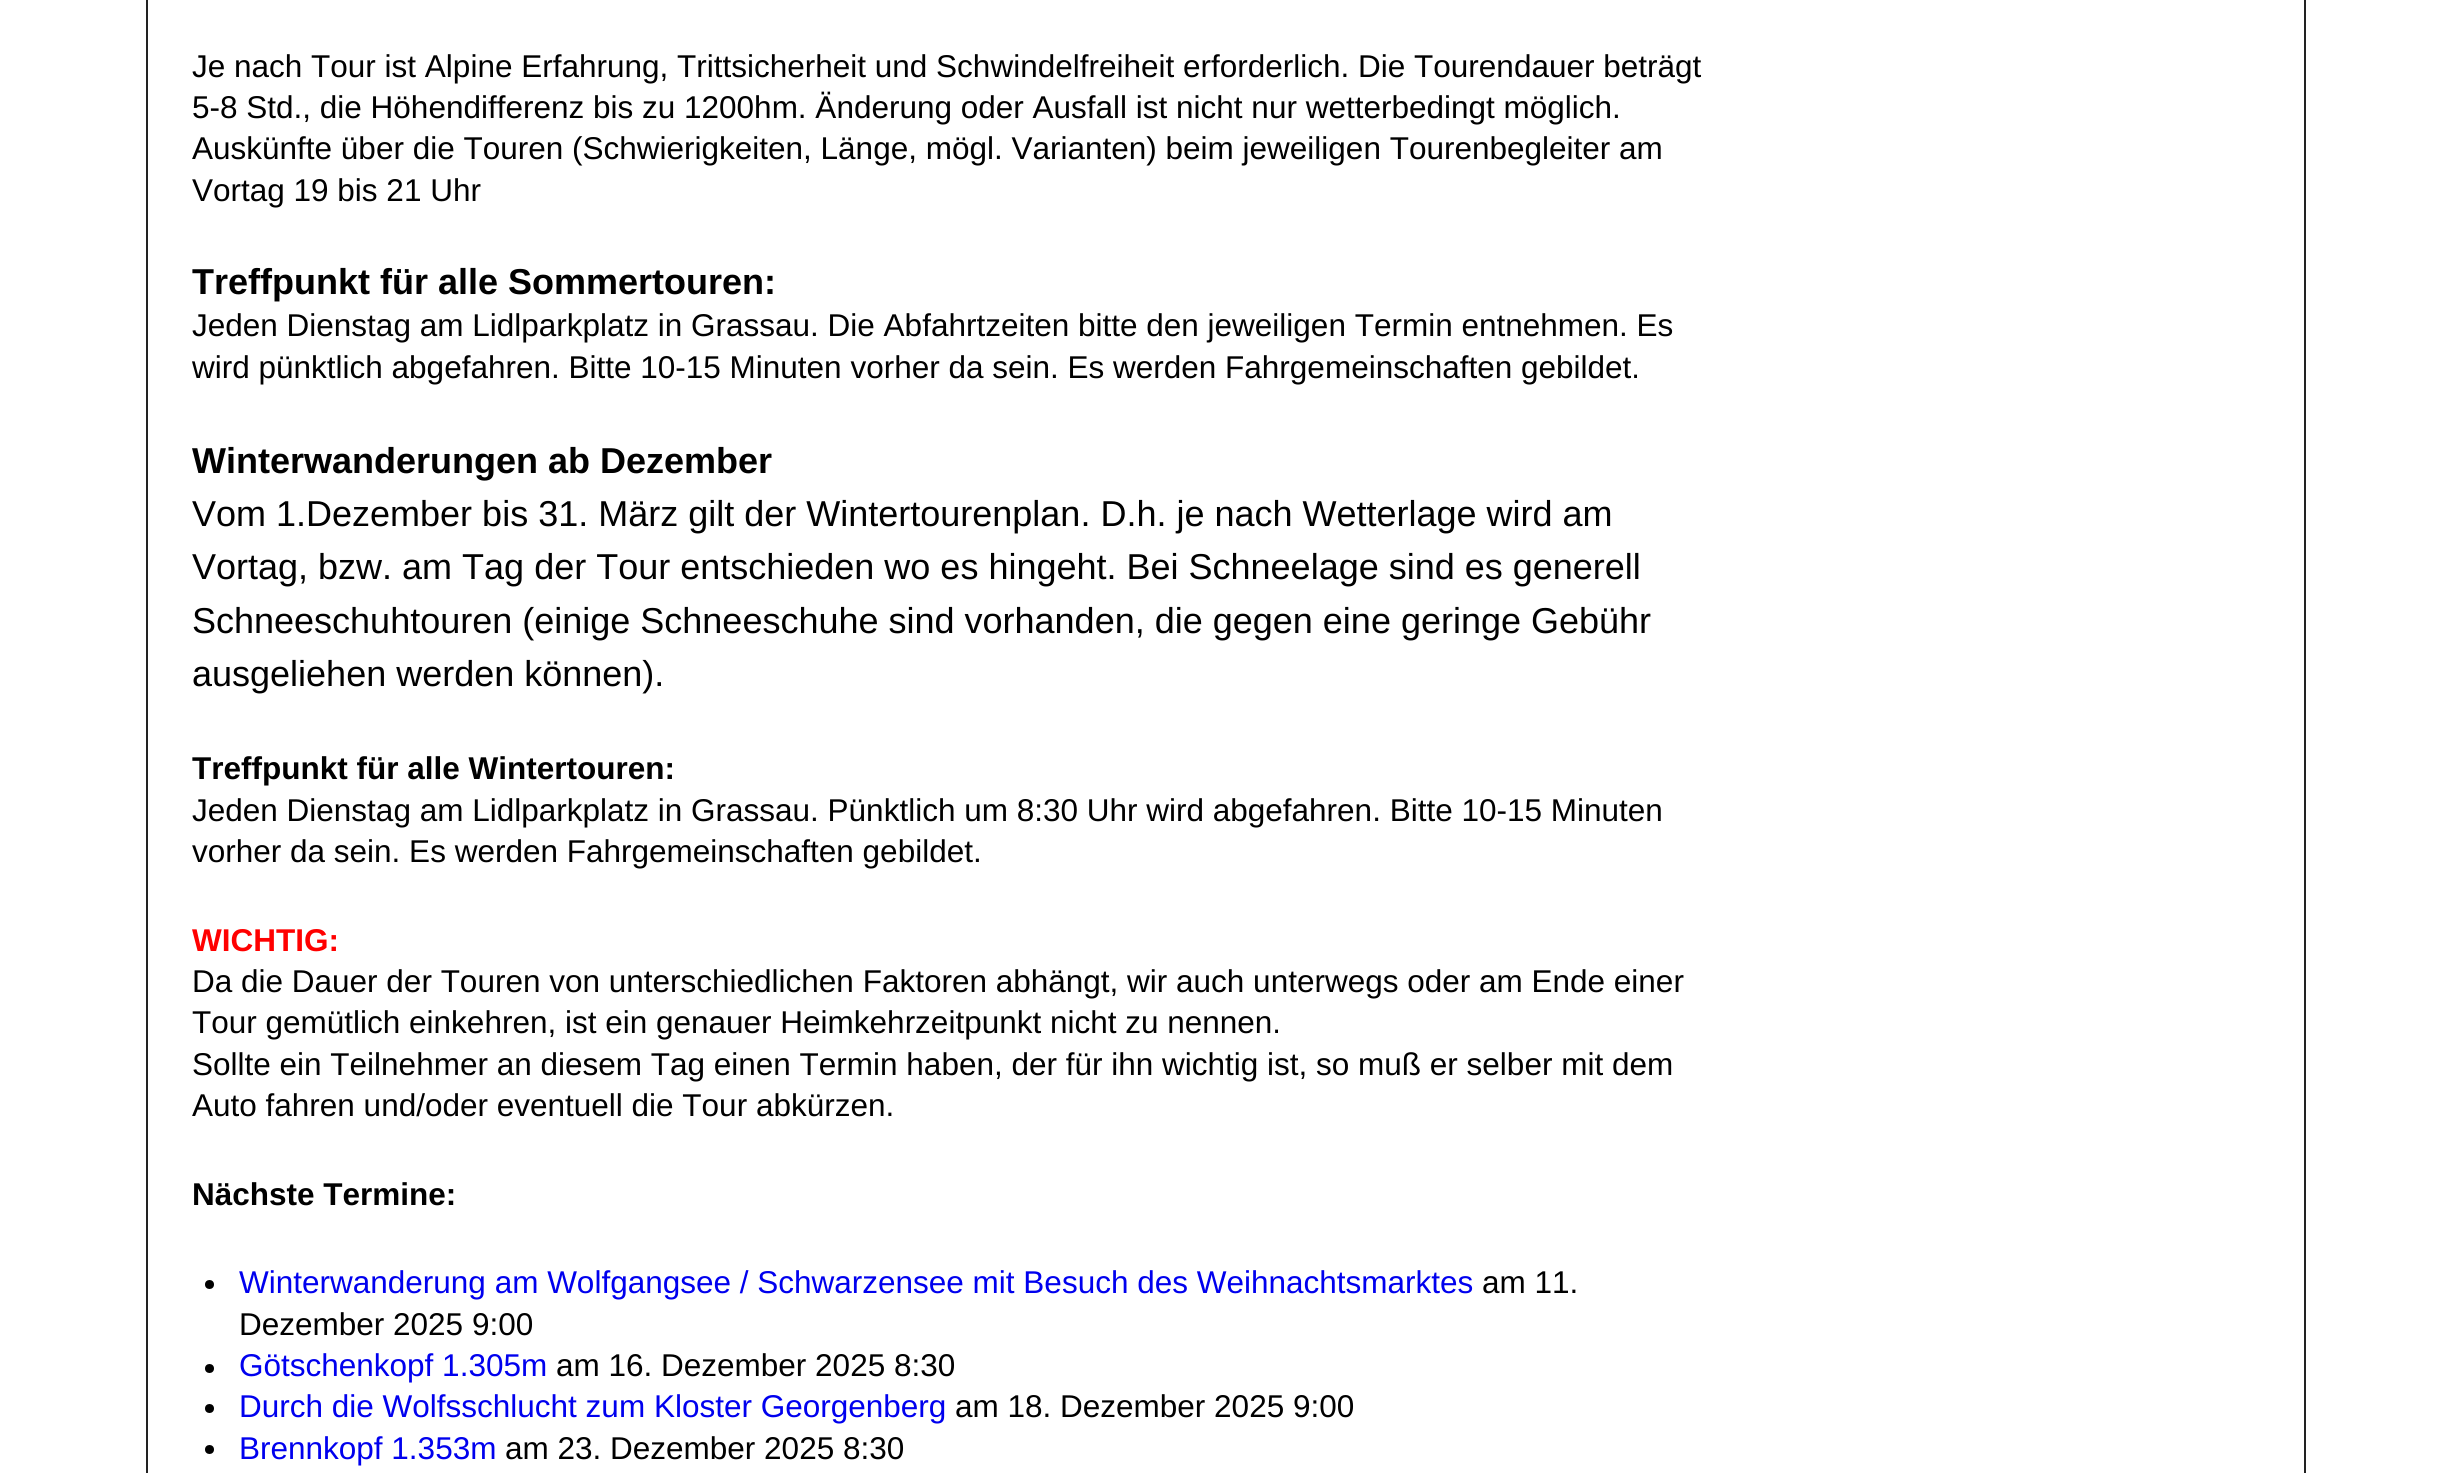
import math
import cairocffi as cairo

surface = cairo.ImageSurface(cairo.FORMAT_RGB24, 2452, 1473)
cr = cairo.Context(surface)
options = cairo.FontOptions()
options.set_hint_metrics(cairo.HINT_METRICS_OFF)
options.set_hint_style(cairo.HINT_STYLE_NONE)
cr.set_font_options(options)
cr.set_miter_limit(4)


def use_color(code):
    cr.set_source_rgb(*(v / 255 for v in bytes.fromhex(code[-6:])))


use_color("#ffffff")
cr.paint()
cr.rectangle(147, -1, 2158, 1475)
use_color("#222222")
cr.stroke()
cr.select_font_face("Liberation Sans")
cr.set_font_size(31.5)
use_color("#000000")
cr.move_to(192, 77)
cr.show_text("Je nach Tour ist Alpine Erfahrung, Trittsicherheit und Schwindelfreiheit erforderlich. Die Tourendauer beträgt")
cr.move_to(192, 118)
cr.show_text("5-8 Std., die Höhendifferenz bis zu 1200hm. Änderung oder Ausfall ist nicht nur wetterbedingt möglich.")
cr.move_to(192, 159)
cr.show_text("Auskünfte über die Touren (Schwierigkeiten, Länge, mögl. Varianten) beim jeweiligen Tourenbegleiter am")
cr.move_to(192, 201)
cr.show_text("Vortag 19 bis 21 Uhr")
cr.select_font_face("Liberation Sans", cairo.FONT_SLANT_NORMAL, cairo.FONT_WEIGHT_BOLD)
cr.set_font_size(36)
cr.move_to(192, 294)
cr.show_text("Treffpunkt für alle Sommertouren:")
cr.select_font_face("Liberation Sans")
cr.set_font_size(31.5)
cr.move_to(192, 336)
cr.show_text("Jeden Dienstag am Lidlparkplatz in Grassau. Die Abfahrtzeiten bitte den jeweiligen Termin entnehmen. Es")
cr.move_to(192, 378)
cr.show_text("wird pünktlich abgefahren. Bitte 10-15 Minuten vorher da sein. Es werden Fahrgemeinschaften gebildet.")
cr.select_font_face("Liberation Sans", cairo.FONT_SLANT_NORMAL, cairo.FONT_WEIGHT_BOLD)
cr.set_font_size(36)
cr.move_to(192, 473)
cr.show_text("Winterwanderungen ab Dezember")
cr.select_font_face("Liberation Sans")
cr.move_to(192, 526)
cr.show_text("Vom 1.Dezember bis 31. März gilt der Wintertourenplan. D.h. je nach Wetterlage wird am")
cr.move_to(192, 579)
cr.show_text("Vortag, bzw. am Tag der Tour entschieden wo es hingeht. Bei Schneelage sind es generell")
cr.move_to(192, 633)
cr.show_text("Schneeschuhtouren (einige Schneeschuhe sind vorhanden, die gegen eine geringe Gebühr")
cr.move_to(192, 686)
cr.show_text("ausgeliehen werden können).")
cr.select_font_face("Liberation Sans", cairo.FONT_SLANT_NORMAL, cairo.FONT_WEIGHT_BOLD)
cr.set_font_size(31.5)
cr.move_to(192, 779)
cr.show_text("Treffpunkt für alle Wintertouren:")
cr.select_font_face("Liberation Sans")
cr.move_to(192, 821)
cr.show_text("Jeden Dienstag am Lidlparkplatz in Grassau. Pünktlich um 8:30 Uhr wird abgefahren. Bitte 10-15 Minuten")
cr.move_to(192, 862)
cr.show_text("vorher da sein. Es werden Fahrgemeinschaften gebildet.")
cr.select_font_face("Liberation Sans", cairo.FONT_SLANT_NORMAL, cairo.FONT_WEIGHT_BOLD)
use_color("#ff0000")
cr.move_to(192, 951)
cr.show_text("WICHTIG:")
cr.select_font_face("Liberation Sans")
use_color("#000000")
cr.move_to(192, 992)
cr.show_text("Da die Dauer der Touren von unterschiedlichen Faktoren abhängt, wir auch unterwegs oder am Ende einer")
cr.move_to(192, 1033)
cr.show_text("Tour gemütlich einkehren, ist ein genauer Heimkehrzeitpunkt nicht zu nennen.")
cr.move_to(192, 1075)
cr.show_text("Sollte ein Teilnehmer an diesem Tag einen Termin haben, der für ihn wichtig ist, so muß er selber mit dem")
cr.move_to(192, 1116)
cr.show_text("Auto fahren und/oder eventuell die Tour abkürzen.")
cr.select_font_face("Liberation Sans", cairo.FONT_SLANT_NORMAL, cairo.FONT_WEIGHT_BOLD)
cr.move_to(192, 1205)
cr.show_text("Nächste Termine:")
cr.new_path()
cr.arc(209.5, 1284.5, 4.5, 0, 2 * math.pi)
cr.fill()
cr.select_font_face("Liberation Sans")
use_color("#0000ee")
cr.move_to(239, 1293)
cr.show_text("Winterwanderung am Wolfgangsee / Schwarzensee mit Besuch des Weihnachtsmarktes")
use_color("#000000")
cr.move_to(1482, 1293)
cr.show_text("am 11.")
cr.move_to(239, 1335)
cr.show_text("Dezember 2025 9:00")
cr.new_path()
cr.arc(209.5, 1368.5, 4.5, 0, 2 * math.pi)
cr.fill()
use_color("#0000ee")
cr.move_to(239, 1376)
cr.show_text("Götschenkopf 1.305m")
use_color("#000000")
cr.move_to(556, 1376)
cr.show_text("am 16. Dezember 2025 8:30")
cr.new_path()
cr.arc(209.5, 1408.5, 4.5, 0, 2 * math.pi)
cr.fill()
use_color("#0000ee")
cr.move_to(239, 1417)
cr.show_text("Durch die Wolfsschlucht zum Kloster Georgenberg")
use_color("#000000")
cr.move_to(955, 1417)
cr.show_text("am 18. Dezember 2025 9:00")
cr.new_path()
cr.arc(209.5, 1449.5, 4.5, 0, 2 * math.pi)
cr.fill()
use_color("#0000ee")
cr.move_to(239, 1459)
cr.show_text("Brennkopf 1.353m")
use_color("#000000")
cr.move_to(505, 1459)
cr.show_text("am 23. Dezember 2025 8:30")
surface.write_to_png("result.png")
